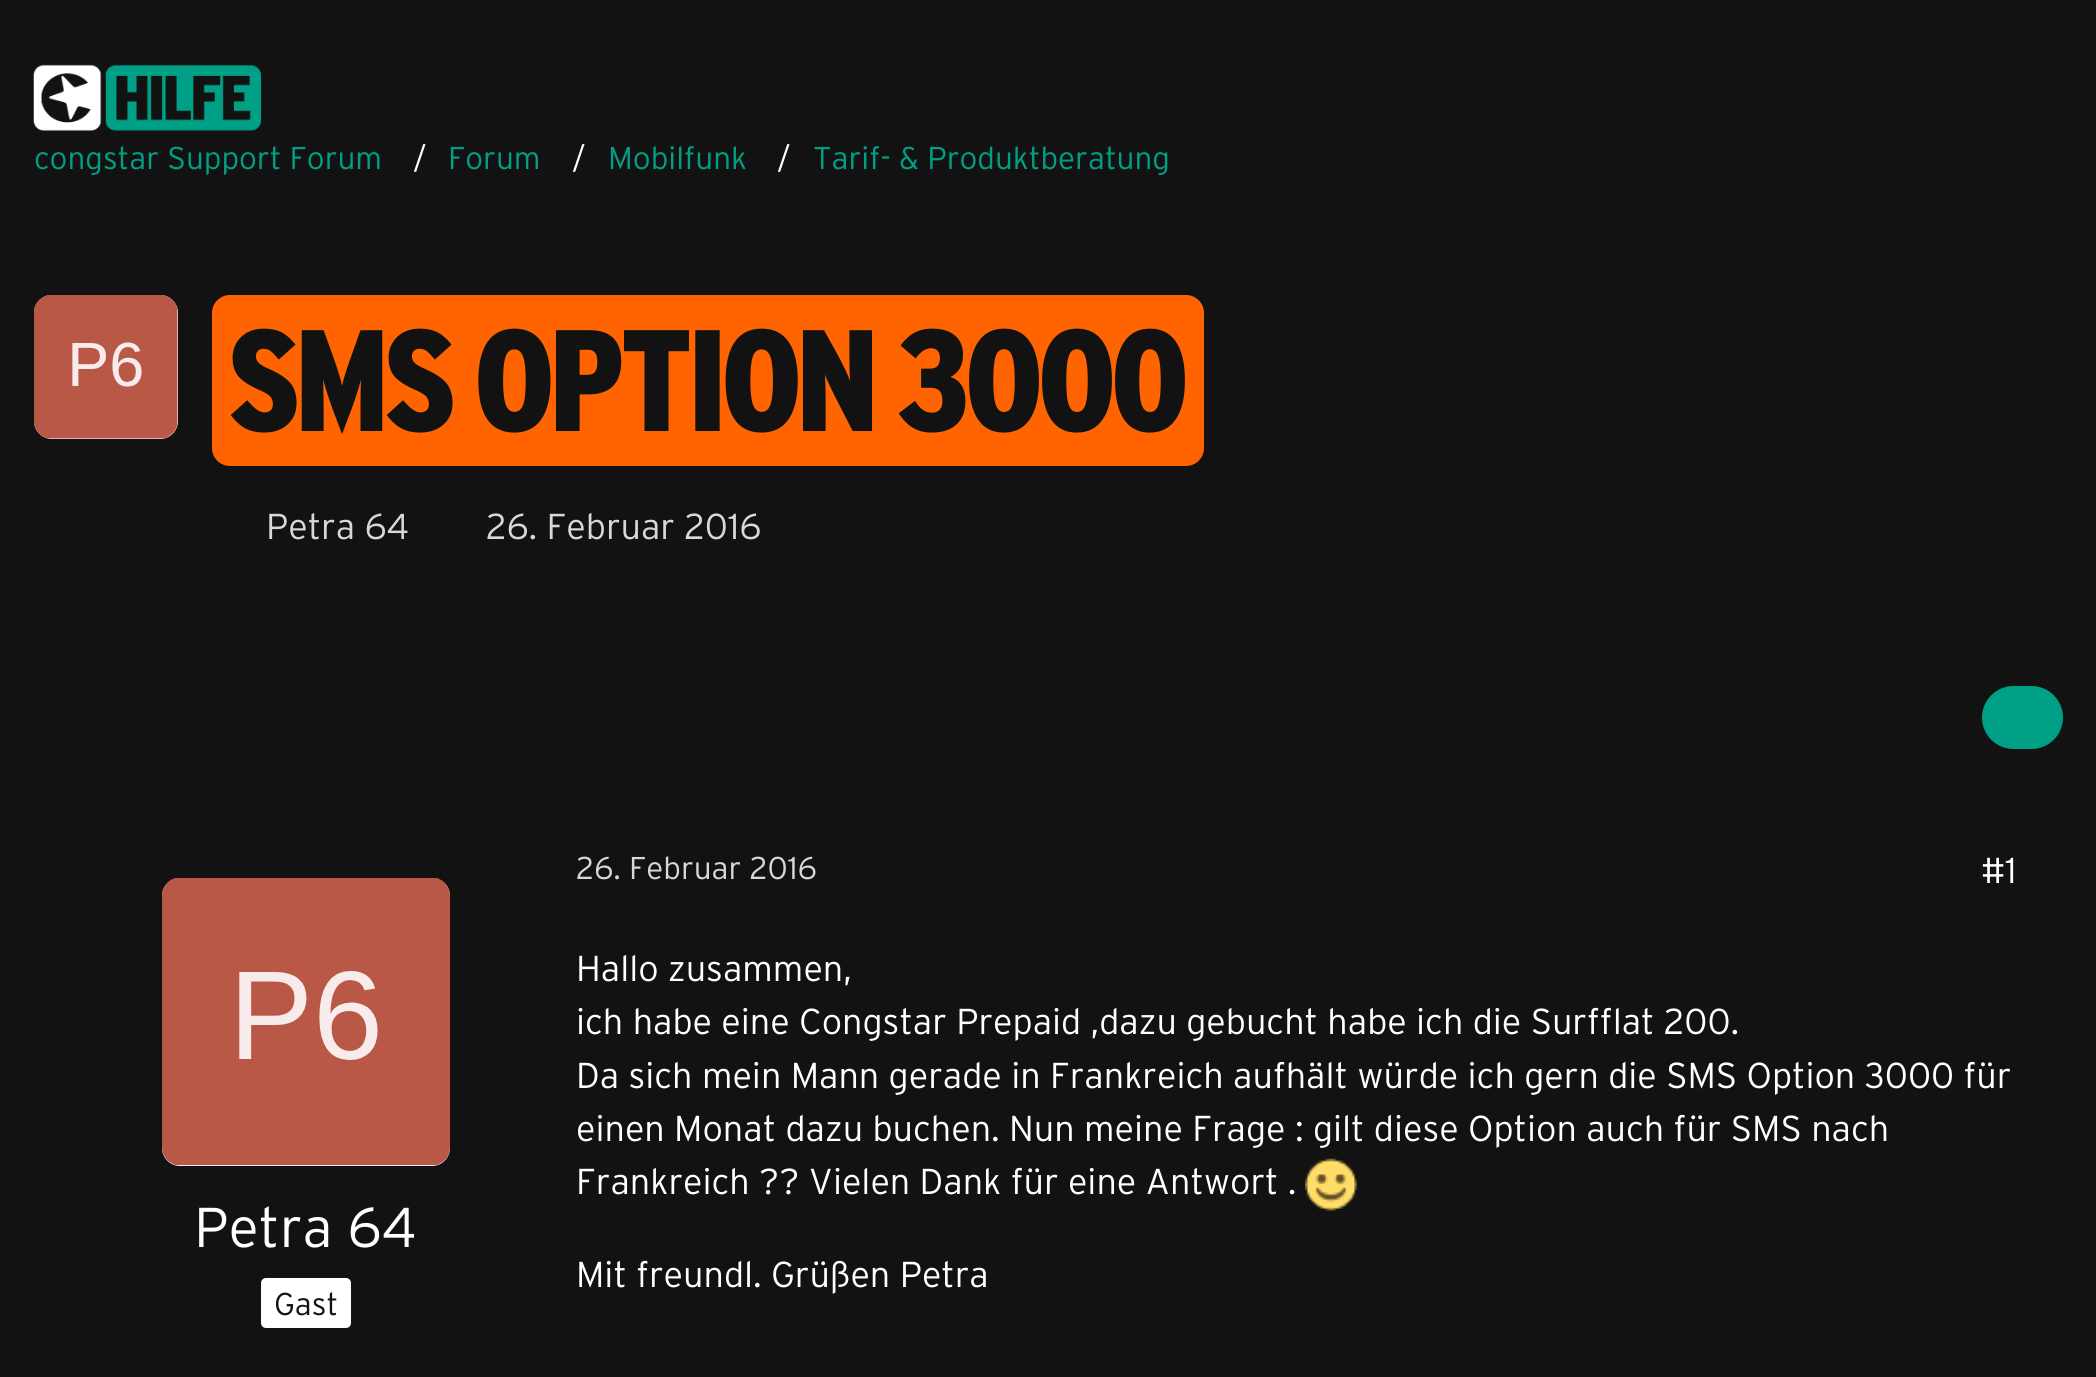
import math
import cairocffi as cairo

surface = cairo.ImageSurface(cairo.FORMAT_RGB24, 2096, 1377)
cr = cairo.Context(surface)
options = cairo.FontOptions()
options.set_hint_metrics(cairo.HINT_METRICS_OFF)
options.set_hint_style(cairo.HINT_STYLE_NONE)
cr.set_font_options(options)
cr.set_miter_limit(4)


def use_color(code):
    cr.set_source_rgb(*(v / 255 for v in bytes.fromhex(code[-6:])))


def round_rect(x, y, w, h, r):
    cr.new_sub_path()
    for i, (u, v) in enumerate([(x + w - r, y + h - r), (x + r, y + h - r), (x + r, y + r), (x + w - r, y + r)]):
        cr.arc(u, v, r, i * math.pi / 2, (i + 1) * math.pi / 2)
    cr.close_path()


def picture(path, x, y, w, h):
    cr.save()
    cr.set_source_surface(cairo.ImageSurface.create_from_png(path), x, y)
    cr.rectangle(x, y, w, h)
    cr.fill()
    cr.restore()


use_color("#121212")
cr.paint()
picture("img1.png", 33, 64, 229, 67)
cr.select_font_face("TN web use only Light")
cr.set_font_size(31.5)
use_color("#00a086")
cr.move_to(34, 169)
cr.show_text("congstar Support Forum")
use_color("#ffffff")
cr.move_to(413, 169)
cr.show_text("/")
use_color("#00a086")
cr.move_to(448, 169)
cr.show_text("Forum")
use_color("#ffffff")
cr.move_to(572, 169)
cr.show_text("/")
use_color("#00a086")
cr.move_to(608, 169)
cr.show_text("Mobilfunk")
use_color("#ffffff")
cr.move_to(777, 169)
cr.show_text("/")
use_color("#00a086")
cr.move_to(813, 169)
cr.show_text("Tarif- & Produktberatung")
use_color("#ffffff")
round_rect(34, 295, 144, 144, 18)
cr.fill()
picture("img2.png", 34, 295, 144, 144)
use_color("#ff6400")
round_rect(212, 295, 992, 171, 18)
cr.fill()
cr.select_font_face("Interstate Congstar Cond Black")
cr.set_font_size(144)
use_color("#121212")
cr.move_to(230, 431)
cr.show_text("SMS OPTION 3000")
cr.select_font_face("TN web use only Light")
cr.set_font_size(36)
use_color("#d8d8d8")
cr.move_to(266, 539)
cr.show_text("Petra 64")
cr.move_to(486, 539)
cr.show_text("26. Februar 2016")
use_color("#00a086")
round_rect(1982, 686, 81, 63, 31.5)
cr.fill()
use_color("#ffffff")
round_rect(162, 878, 288, 288, 18)
cr.fill()
picture("img3.png", 162, 878, 288, 288)
cr.set_font_size(56)
cr.move_to(194, 1247)
cr.show_text("Petra 64")
round_rect(261, 1278, 90, 50, 5)
cr.fill()
cr.set_font_size(31.5)
use_color("#121212")
cr.move_to(274, 1315)
cr.show_text("Gast")
use_color("#d8d8d8")
cr.move_to(576, 879)
cr.show_text("26. Februar 2016")
cr.set_font_size(36)
use_color("#ffffff")
cr.move_to(1981, 883)
cr.show_text("#1")
cr.move_to(576, 981)
cr.show_text("Hallo zusammen,")
cr.move_to(576, 1034)
cr.show_text("ich habe eine Congstar Prepaid ,dazu gebucht habe ich die Surfflat 200.")
cr.move_to(576, 1088)
cr.show_text("Da sich mein Mann gerade in Frankreich aufhält würde ich gern die SMS Option 3000 für")
cr.move_to(576, 1141)
cr.show_text("einen Monat dazu buchen. Nun meine Frage : gilt diese Option auch für SMS nach")
cr.move_to(576, 1194)
cr.show_text("Frankreich ?? Vielen Dank für eine Antwort .")
picture("img4.png", 1305, 1158, 52, 53)
cr.move_to(576, 1287)
cr.show_text("Mit freundl. Grüßen Petra")
surface.write_to_png("result.png")
